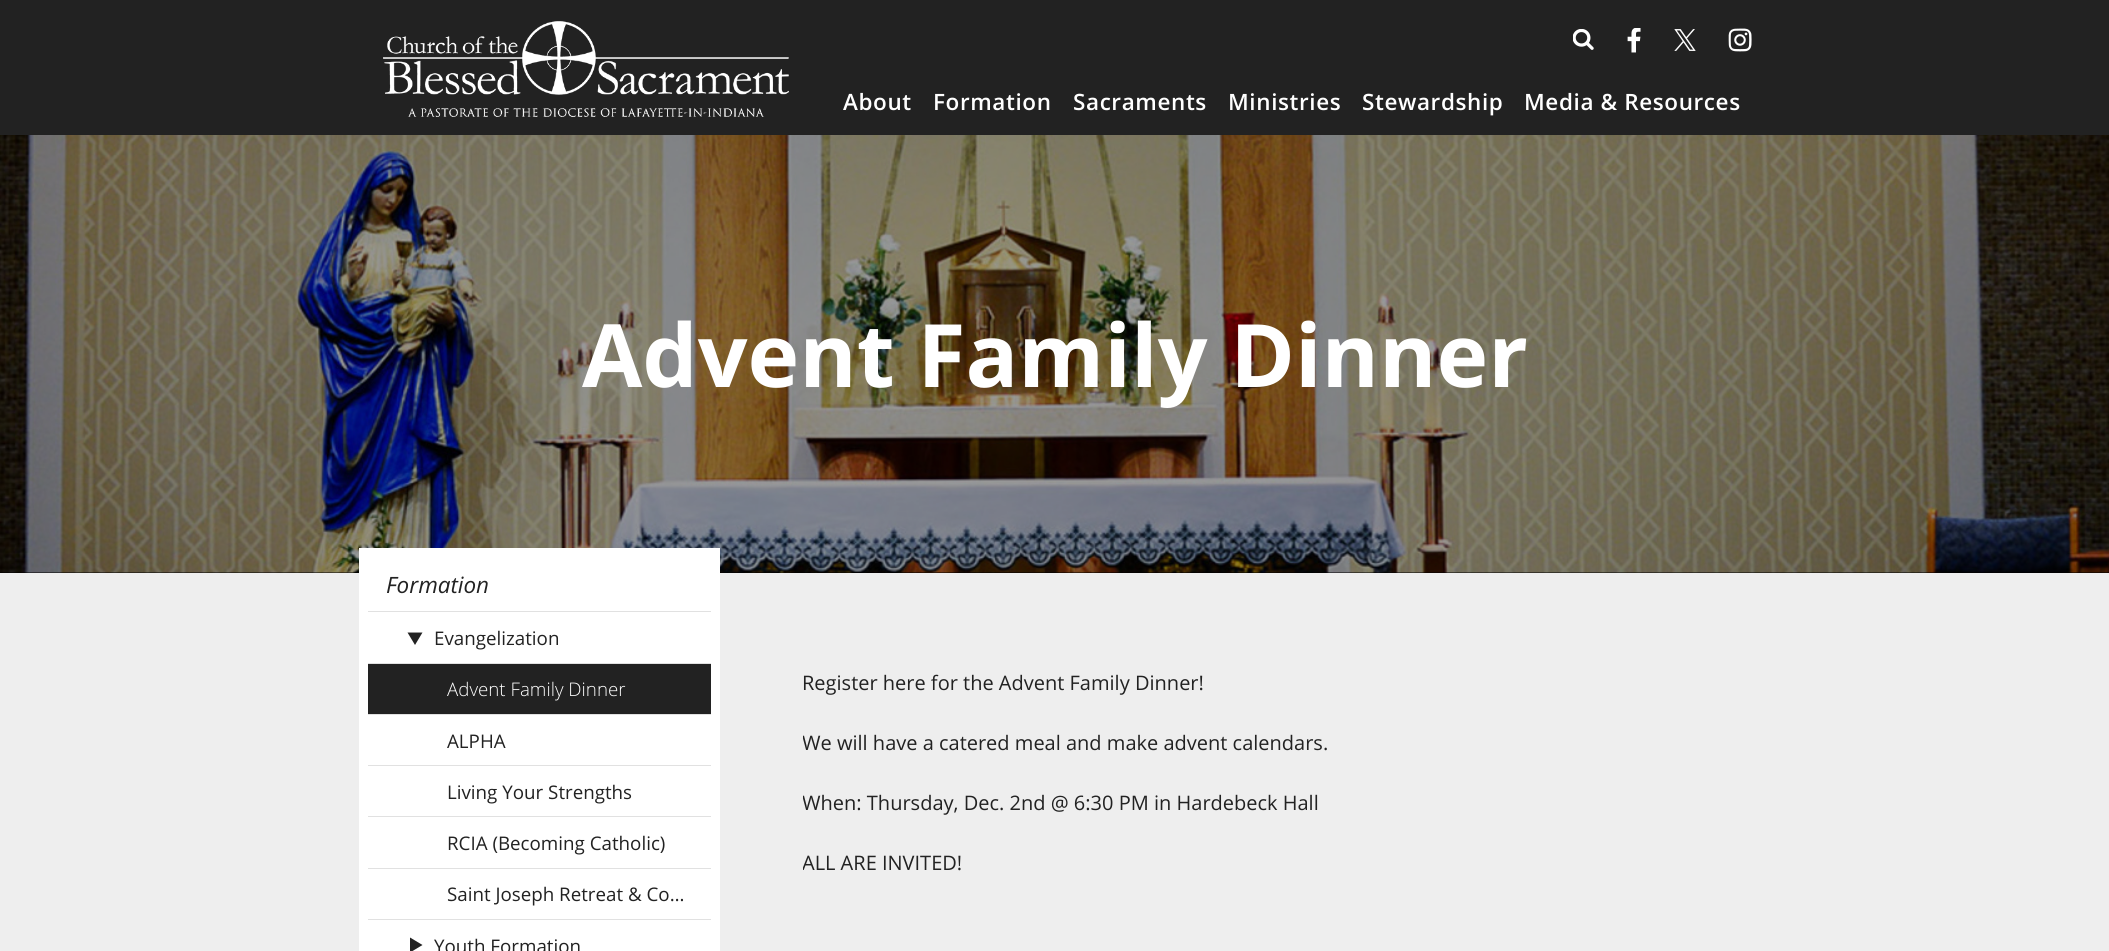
import math
import cairocffi as cairo

surface = cairo.ImageSurface(cairo.FORMAT_RGB24, 2109, 951)
cr = cairo.Context(surface)
options = cairo.FontOptions()
options.set_hint_metrics(cairo.HINT_METRICS_OFF)
options.set_hint_style(cairo.HINT_STYLE_NONE)
cr.set_font_options(options)
cr.set_miter_limit(4)


def use_color(code):
    cr.set_source_rgb(*(v / 255 for v in bytes.fromhex(code[-6:])))


def spaced_text(x, y, s, letter, word):
    cr.move_to(x, y)
    for ch in s:
        cr.show_text(ch)
        cr.rel_move_to(letter + word * (ch == ' '), 0)


def picture(path, x, y, w, h):
    cr.save()
    cr.set_source_surface(cairo.ImageSurface.create_from_png(path), x, y)
    cr.rectangle(x, y, w, h)
    cr.fill()
    cr.restore()


use_color("#eeeeee")
cr.paint()
use_color("#222222")
cr.rectangle(0, 0, 2109, 135)
cr.fill()
picture("img1.png", 383, 21, 406, 96)
picture("img2.png", 1573, 29, 21, 21)
picture("img3.png", 1627, 28, 14, 25)
picture("img4.png", 1674, 29, 22, 22)
picture("img5.png", 1728, 28, 24, 24)
cr.select_font_face("Open Sans SemiBold")
cr.set_font_size(22.5)
use_color("#ffffff")
spaced_text(843, 110, "About", 0.6, 0)
spaced_text(933, 110, "Formation", 0.6, 0)
spaced_text(1073, 110, "Sacraments", 0.6, 0)
spaced_text(1228, 110, "Ministries", 0.6, 0)
spaced_text(1362, 110, "Stewardship", 0.6, 0)
spaced_text(1524, 110, "Media & Resources", 0.6, 0)
use_color("#000000")
cr.rectangle(0, 135, 2109, 438)
cr.fill()
picture("img6.png", 0, 135, 2109, 438)
cr.select_font_face("Open Sans", cairo.FONT_SLANT_NORMAL, cairo.FONT_WEIGHT_BOLD)
cr.set_font_size(87.5)
use_color("#ffffff")
cr.move_to(582, 387)
cr.show_text("Advent Family Dinner")
cr.rectangle(359, 548, 361, 403)
cr.fill()
cr.select_font_face("Open Sans", cairo.FONT_SLANT_ITALIC)
cr.set_font_size(22.5)
use_color("#222222")
cr.move_to(386, 593)
cr.show_text("Formation")
use_color("#e1e1e1")
cr.rectangle(368, 611, 343, 1)
cr.fill()
use_color("#222222")
cr.new_path()
cr.move_to(407.5, 632.5)
cr.line_to(422.5, 632.5)
cr.line_to(415, 645)
cr.close_path()
cr.fill()
cr.select_font_face("Open Sans")
cr.set_font_size(18.75)
cr.move_to(434, 645)
cr.show_text("Evangelization")
use_color("#e1e1e1")
cr.rectangle(368, 663, 343, 1)
cr.fill()
use_color("#222222")
cr.rectangle(368, 664, 343, 50)
cr.fill()
cr.select_font_face("Open Sans Light")
use_color("#ffffff")
cr.move_to(447, 696)
cr.show_text("Advent Family Dinner")
use_color("#e1e1e1")
cr.rectangle(368, 714, 343, 1)
cr.fill()
cr.select_font_face("Open Sans")
use_color("#222222")
cr.move_to(447, 748)
cr.show_text("ALPHA")
use_color("#e1e1e1")
cr.rectangle(368, 765, 343, 1)
cr.fill()
use_color("#222222")
cr.move_to(447, 799)
cr.show_text("Living Your Strengths")
use_color("#e1e1e1")
cr.rectangle(368, 816, 343, 1)
cr.fill()
use_color("#222222")
cr.move_to(447, 850)
cr.show_text("RCIA (Becoming Catholic)")
use_color("#e1e1e1")
cr.rectangle(368, 868, 343, 1)
cr.fill()
use_color("#222222")
cr.move_to(447, 901)
cr.show_text("Saint Joseph Retreat & Co…")
use_color("#e1e1e1")
cr.rectangle(368, 919, 343, 1)
cr.fill()
use_color("#222222")
cr.new_path()
cr.move_to(410, 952.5)
cr.line_to(410, 937.5)
cr.line_to(422.5, 945)
cr.close_path()
cr.fill()
cr.move_to(434, 953)
cr.show_text("Youth Formation")
cr.set_font_size(20)
cr.move_to(802, 690)
cr.show_text("Register here for the Advent Family Dinner!")
cr.save()
cr.rectangle(803, 648, 950, 250)
cr.clip()
cr.move_to(802, 750)
cr.show_text("We will have a catered meal and make advent calendars.")
cr.move_to(802, 810)
cr.show_text("When: Thursday, Dec. 2nd @ 6:30 PM in Hardebeck Hall")
cr.move_to(802, 870)
cr.show_text("ALL ARE INVITED!")
cr.restore()
surface.write_to_png("result.png")
